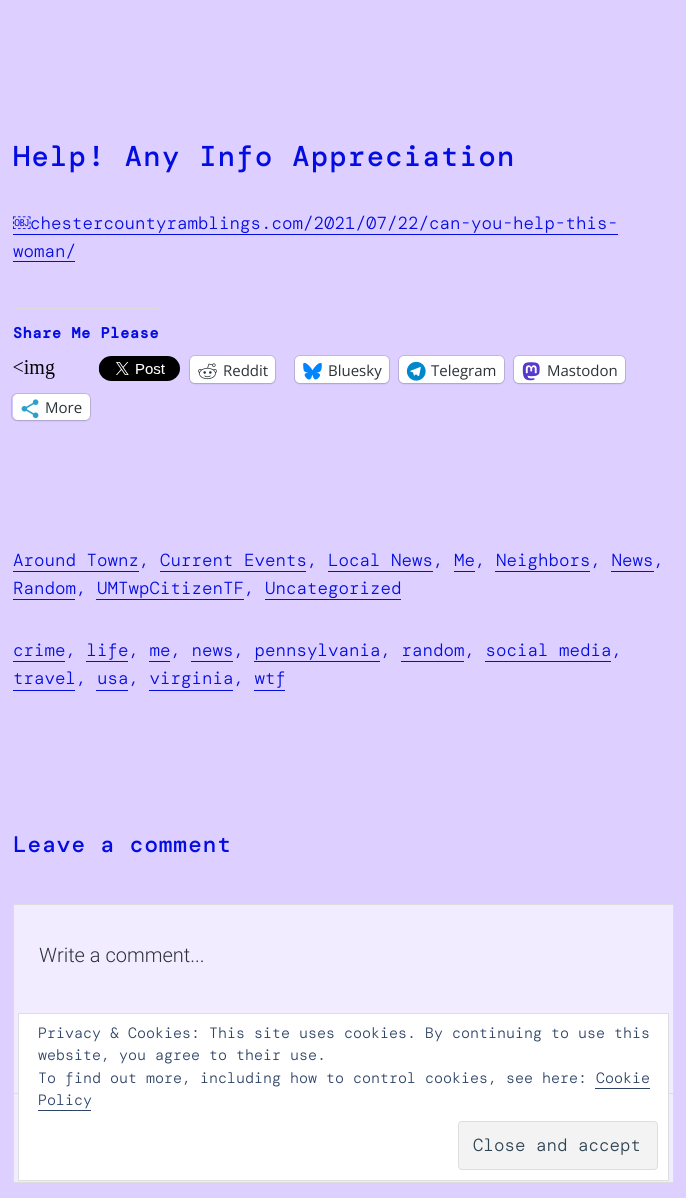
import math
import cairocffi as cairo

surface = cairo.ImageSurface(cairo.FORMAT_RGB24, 686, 1198)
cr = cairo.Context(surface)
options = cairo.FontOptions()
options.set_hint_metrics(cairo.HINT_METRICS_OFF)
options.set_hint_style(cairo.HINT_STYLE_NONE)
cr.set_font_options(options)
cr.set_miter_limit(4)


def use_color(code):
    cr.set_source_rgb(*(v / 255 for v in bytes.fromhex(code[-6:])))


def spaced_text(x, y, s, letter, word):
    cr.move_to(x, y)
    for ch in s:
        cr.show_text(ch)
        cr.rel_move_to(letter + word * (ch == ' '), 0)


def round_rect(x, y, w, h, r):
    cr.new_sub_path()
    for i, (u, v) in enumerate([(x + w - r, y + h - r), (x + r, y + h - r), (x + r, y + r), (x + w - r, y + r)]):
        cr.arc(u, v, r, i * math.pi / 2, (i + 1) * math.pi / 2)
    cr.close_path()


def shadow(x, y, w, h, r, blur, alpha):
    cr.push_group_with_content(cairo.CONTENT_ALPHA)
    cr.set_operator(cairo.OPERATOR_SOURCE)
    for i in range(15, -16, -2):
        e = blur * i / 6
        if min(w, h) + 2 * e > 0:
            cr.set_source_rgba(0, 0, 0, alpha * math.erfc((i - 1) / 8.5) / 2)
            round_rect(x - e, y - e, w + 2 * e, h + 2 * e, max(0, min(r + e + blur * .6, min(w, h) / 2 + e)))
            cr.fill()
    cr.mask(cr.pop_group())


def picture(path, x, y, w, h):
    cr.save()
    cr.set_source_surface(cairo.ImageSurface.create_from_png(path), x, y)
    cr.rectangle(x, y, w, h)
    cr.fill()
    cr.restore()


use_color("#ddcfff")
cr.paint()
cr.select_font_face("DM Mono Medium")
cr.set_font_size(28.7)
use_color("#040de1")
spaced_text(13, 166, "Help! Any Info Appreciation", 1.4, 0)
cr.select_font_face("Liberation Sans")
cr.set_font_size(17.5)
cr.move_to(13, 229)
cr.show_text("￼")
cr.select_font_face("DM Mono Light")
cr.move_to(30, 229)
cr.show_text("chestercountyramblings.com/2021/07/22/can-you-help-this-")
cr.rectangle(13, 234, 605, 1)
cr.fill()
cr.move_to(13, 257)
cr.show_text("woman/")
cr.rectangle(13, 261, 62, 1)
cr.fill()
use_color("#dcdcde")
cr.rectangle(13, 308, 146, 1)
cr.fill()
cr.select_font_face("DM Mono", cairo.FONT_SLANT_NORMAL, cairo.FONT_WEIGHT_BOLD)
cr.set_font_size(15)
use_color("#040de1")
spaced_text(13, 338, "Share Me Please", 0.75, 0)
picture("img1.png", 13, 360, 42, 19)
picture("img2.png", 98, 356, 82, 25)
round_rect(189.5, 355.5, 86, 28, 5.5)
use_color("#c2b6e0")
cr.set_line_width(1)
cr.stroke()
use_color("#000000")
shadow(190, 358, 85, 26, 5, 1, 0.12)
use_color("#ffffff")
round_rect(190, 356, 85, 27, 5)
cr.fill()
picture("img3.png", 198, 363, 19, 17)
cr.select_font_face("Open Sans")
use_color("#2c3338")
cr.move_to(223, 376)
cr.show_text("Reddit")
round_rect(294.5, 355.5, 95, 28, 5.5)
use_color("#c2b6e0")
cr.stroke()
use_color("#000000")
shadow(295, 358, 94, 26, 5, 1, 0.12)
use_color("#ffffff")
round_rect(295, 356, 94, 27, 5)
cr.fill()
picture("img4.png", 303, 362, 19, 18)
use_color("#2c3338")
cr.move_to(328, 376)
cr.show_text("Bluesky")
round_rect(398.5, 355.5, 106, 28, 5.5)
use_color("#c2b6e0")
cr.stroke()
use_color("#000000")
shadow(399, 358, 105, 26, 5, 1, 0.12)
use_color("#ffffff")
round_rect(399, 356, 105, 27, 5)
cr.fill()
picture("img5.png", 406, 361, 20, 20)
use_color("#2c3338")
cr.move_to(431, 376)
cr.show_text("Telegram")
round_rect(513.5, 355.5, 112, 28, 5.5)
use_color("#c2b6e0")
cr.stroke()
use_color("#000000")
shadow(514, 358, 111, 26, 5, 1, 0.12)
use_color("#ffffff")
round_rect(514, 356, 111, 27, 5)
cr.fill()
picture("img6.png", 522, 362, 18, 19)
use_color("#2c3338")
cr.move_to(547, 376)
cr.show_text("Mastodon")
round_rect(11.5, 393.5, 79, 27, 5.5)
use_color("#c2b6e0")
cr.stroke()
use_color("#000000")
shadow(13, 395, 77, 26, 5, 1, 0.12)
use_color("#ffffff")
round_rect(13, 394, 77, 26, 5)
cr.fill()
picture("img7.png", 21, 399, 18, 20)
use_color("#2c3338")
cr.move_to(45, 413)
cr.show_text("More")
cr.select_font_face("DM Mono Light")
cr.set_font_size(17.5)
use_color("#040de1")
cr.move_to(13, 566)
cr.show_text("Around Townz, Current Events, Local News, Me, Neighbors, News,")
cr.rectangle(13, 571, 126, 1)
cr.fill()
cr.rectangle(160, 571, 146, 1)
cr.fill()
cr.rectangle(328, 571, 105, 1)
cr.fill()
cr.rectangle(454, 571, 21, 1)
cr.fill()
cr.rectangle(495, 571, 95, 1)
cr.fill()
cr.rectangle(611, 571, 43, 1)
cr.fill()
cr.move_to(13, 594)
cr.show_text("Random, UMTwpCitizenTF, Uncategorized")
cr.rectangle(13, 599, 62, 1)
cr.fill()
cr.rectangle(96, 599, 148, 1)
cr.fill()
cr.rectangle(265, 599, 136, 1)
cr.fill()
cr.move_to(13, 656)
cr.show_text("crime, life, me, news, pennsylvania, random, social media,")
cr.rectangle(13, 661, 52, 1)
cr.fill()
cr.rectangle(86, 661, 42, 1)
cr.fill()
cr.rectangle(149, 661, 21, 1)
cr.fill()
cr.rectangle(191, 661, 42, 1)
cr.fill()
cr.rectangle(254, 661, 126, 1)
cr.fill()
cr.rectangle(401, 661, 63, 1)
cr.fill()
cr.rectangle(485, 661, 126, 1)
cr.fill()
cr.move_to(13, 684)
cr.show_text("travel, usa, virginia, wtf")
cr.rectangle(13, 690, 62, 1)
cr.fill()
cr.rectangle(96, 690, 32, 1)
cr.fill()
cr.rectangle(149, 690, 84, 1)
cr.fill()
cr.rectangle(254, 690, 31, 1)
cr.fill()
cr.select_font_face("DM Mono Medium")
cr.set_font_size(22.5)
spaced_text(13, 852, "Leave a comment", 1.1, 0)
use_color("#f1ecff")
cr.rectangle(13.5, 904.5, 660, 278)
cr.fill_preserve()
use_color("#dcdcde")
cr.stroke()
cr.select_font_face("Roboto Light")
cr.set_font_size(20)
use_color("#2c3338")
cr.move_to(39, 962)
cr.show_text("Write a comment...")
use_color("#dcdcde")
cr.rectangle(14, 1093, 659, 1)
cr.fill()
use_color("#ffffff")
cr.rectangle(18.5, 1013.5, 650, 167)
cr.fill_preserve()
use_color("#dedede")
cr.stroke()
cr.select_font_face("DM Mono Light")
cr.set_font_size(15)
use_color("#2e4467")
cr.move_to(38, 1038)
cr.show_text("Privacy & Cookies: This site uses cookies. By continuing to use this")
cr.move_to(38, 1060)
cr.show_text("website, you agree to their use.")
cr.move_to(38, 1083)
cr.show_text("To find out more, including how to control cookies, see here: Cookie")
cr.move_to(38, 1105)
cr.show_text("Policy")
cr.rectangle(595, 1088, 55, 1)
cr.fill()
cr.rectangle(38, 1110, 53, 1)
cr.fill()
use_color("#f3f3f3")
round_rect(458.5, 1121.5, 199, 48, 3.5)
cr.fill_preserve()
use_color("#dedede")
cr.stroke()
cr.set_font_size(17.5)
use_color("#2e4453")
cr.move_to(473, 1151)
cr.show_text("Close and accept")
surface.write_to_png("result.png")
